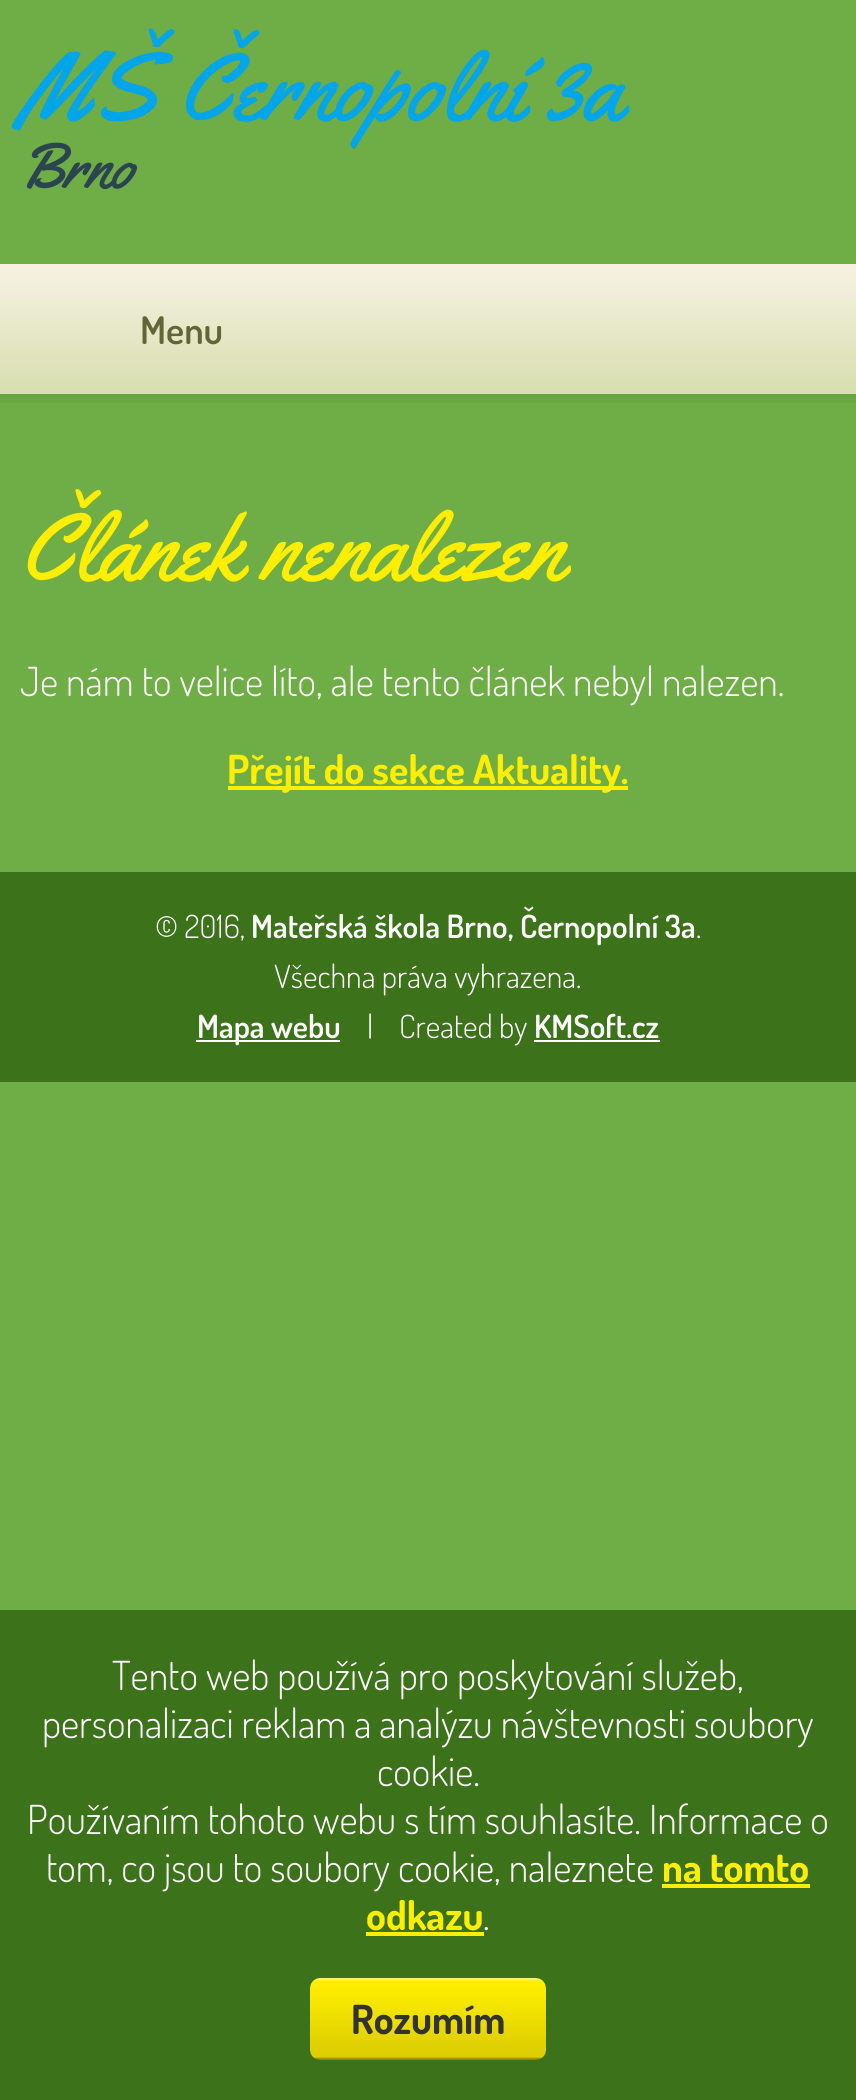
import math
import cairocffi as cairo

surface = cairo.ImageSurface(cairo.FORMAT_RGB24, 856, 2100)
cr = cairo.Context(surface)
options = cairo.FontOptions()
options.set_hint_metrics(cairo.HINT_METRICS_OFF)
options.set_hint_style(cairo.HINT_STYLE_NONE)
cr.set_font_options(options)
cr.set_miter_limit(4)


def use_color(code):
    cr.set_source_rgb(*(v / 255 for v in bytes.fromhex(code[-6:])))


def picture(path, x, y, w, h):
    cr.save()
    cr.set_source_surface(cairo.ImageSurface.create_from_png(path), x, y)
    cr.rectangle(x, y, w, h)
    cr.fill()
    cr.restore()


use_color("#6fad46")
cr.paint()
cr.select_font_face("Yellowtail")
cr.set_font_size(96)
use_color("#00a5ea")
cr.move_to(20, 120)
cr.show_text("MŠ Černopolní 3a")
cr.set_font_size(64)
use_color("#2a454f")
cr.move_to(20, 188)
cr.show_text("Brno")
picture("img1.png", 0, 394, 856, 9)
picture("img2.png", 0, 264, 856, 130)
cr.select_font_face("Dosis SemiBold")
cr.set_font_size(38)
use_color("#606636")
cr.move_to(140, 344)
cr.show_text("Menu")
cr.select_font_face("Yellowtail")
cr.set_font_size(96)
use_color("#ffee00")
cr.move_to(20, 580)
cr.show_text("Článek nenalezen")
cr.select_font_face("Dosis Light")
cr.set_font_size(40)
use_color("#ffffff")
cr.move_to(20, 696)
cr.show_text("Je nám to velice líto, ale tento článek nebyl nalezen.")
use_color("#ffee00")
cr.rectangle(228, 786, 400, 4)
cr.fill()
cr.select_font_face("Dosis", cairo.FONT_SLANT_NORMAL, cairo.FONT_WEIGHT_BOLD)
cr.move_to(227, 784)
cr.show_text("Přejít do sekce Aktuality.")
use_color("#3c7219")
cr.rectangle(0, 872, 856, 210)
cr.fill()
cr.select_font_face("Dosis Light")
cr.set_font_size(32)
use_color("#ffffff")
cr.move_to(155, 938)
cr.show_text("© 2016,")
cr.select_font_face("Dosis SemiBold")
cr.move_to(251, 938)
cr.show_text("Mateřská škola Brno, Černopolní 3a")
cr.select_font_face("Dosis Light")
cr.move_to(696, 938)
cr.show_text(".")
cr.move_to(274, 988)
cr.show_text("Všechna práva vyhrazena.")
cr.rectangle(196, 1040, 144, 2)
cr.fill()
cr.select_font_face("Dosis SemiBold")
cr.move_to(197, 1038)
cr.show_text("Mapa webu")
cr.select_font_face("Dosis Light")
cr.move_to(367, 1038)
cr.show_text("|")
cr.move_to(399, 1038)
cr.show_text("Created by")
cr.rectangle(534, 1040, 126, 2)
cr.fill()
cr.select_font_face("Dosis SemiBold")
cr.move_to(534, 1038)
cr.show_text("KMSoft.cz")
use_color("#3c7219")
cr.rectangle(0, 1610, 856, 490)
cr.fill()
cr.select_font_face("Dosis Light")
cr.set_font_size(40)
use_color("#ffffff")
cr.move_to(112, 1690)
cr.show_text("Tento web používá pro poskytování služeb,")
cr.move_to(42, 1738)
cr.show_text("personalizaci reklam a analýzu návštevnosti soubory")
cr.move_to(377, 1786)
cr.show_text("cookie.")
cr.move_to(27, 1834)
cr.show_text("Používaním tohoto webu s tím souhlasíte. Informace o")
cr.move_to(46, 1882)
cr.show_text("tom, co jsou to soubory cookie, naleznete")
cr.select_font_face("Dosis", cairo.FONT_SLANT_NORMAL, cairo.FONT_WEIGHT_BOLD)
use_color("#ffee00")
cr.move_to(662, 1882)
cr.show_text("na tomto")
cr.rectangle(662, 1884, 148, 4)
cr.fill()
cr.move_to(366, 1930)
cr.show_text("odkazu")
cr.rectangle(366, 1932, 118, 4)
cr.fill()
cr.select_font_face("Dosis Light")
use_color("#ffffff")
cr.move_to(483, 1930)
cr.show_text(".")
picture("img3.png", 310, 1978, 236, 82)
cr.select_font_face("Dosis", cairo.FONT_SLANT_NORMAL, cairo.FONT_WEIGHT_BOLD)
use_color("#333333")
cr.move_to(351, 2034)
cr.show_text("Rozumím")
surface.write_to_png("result.png")
